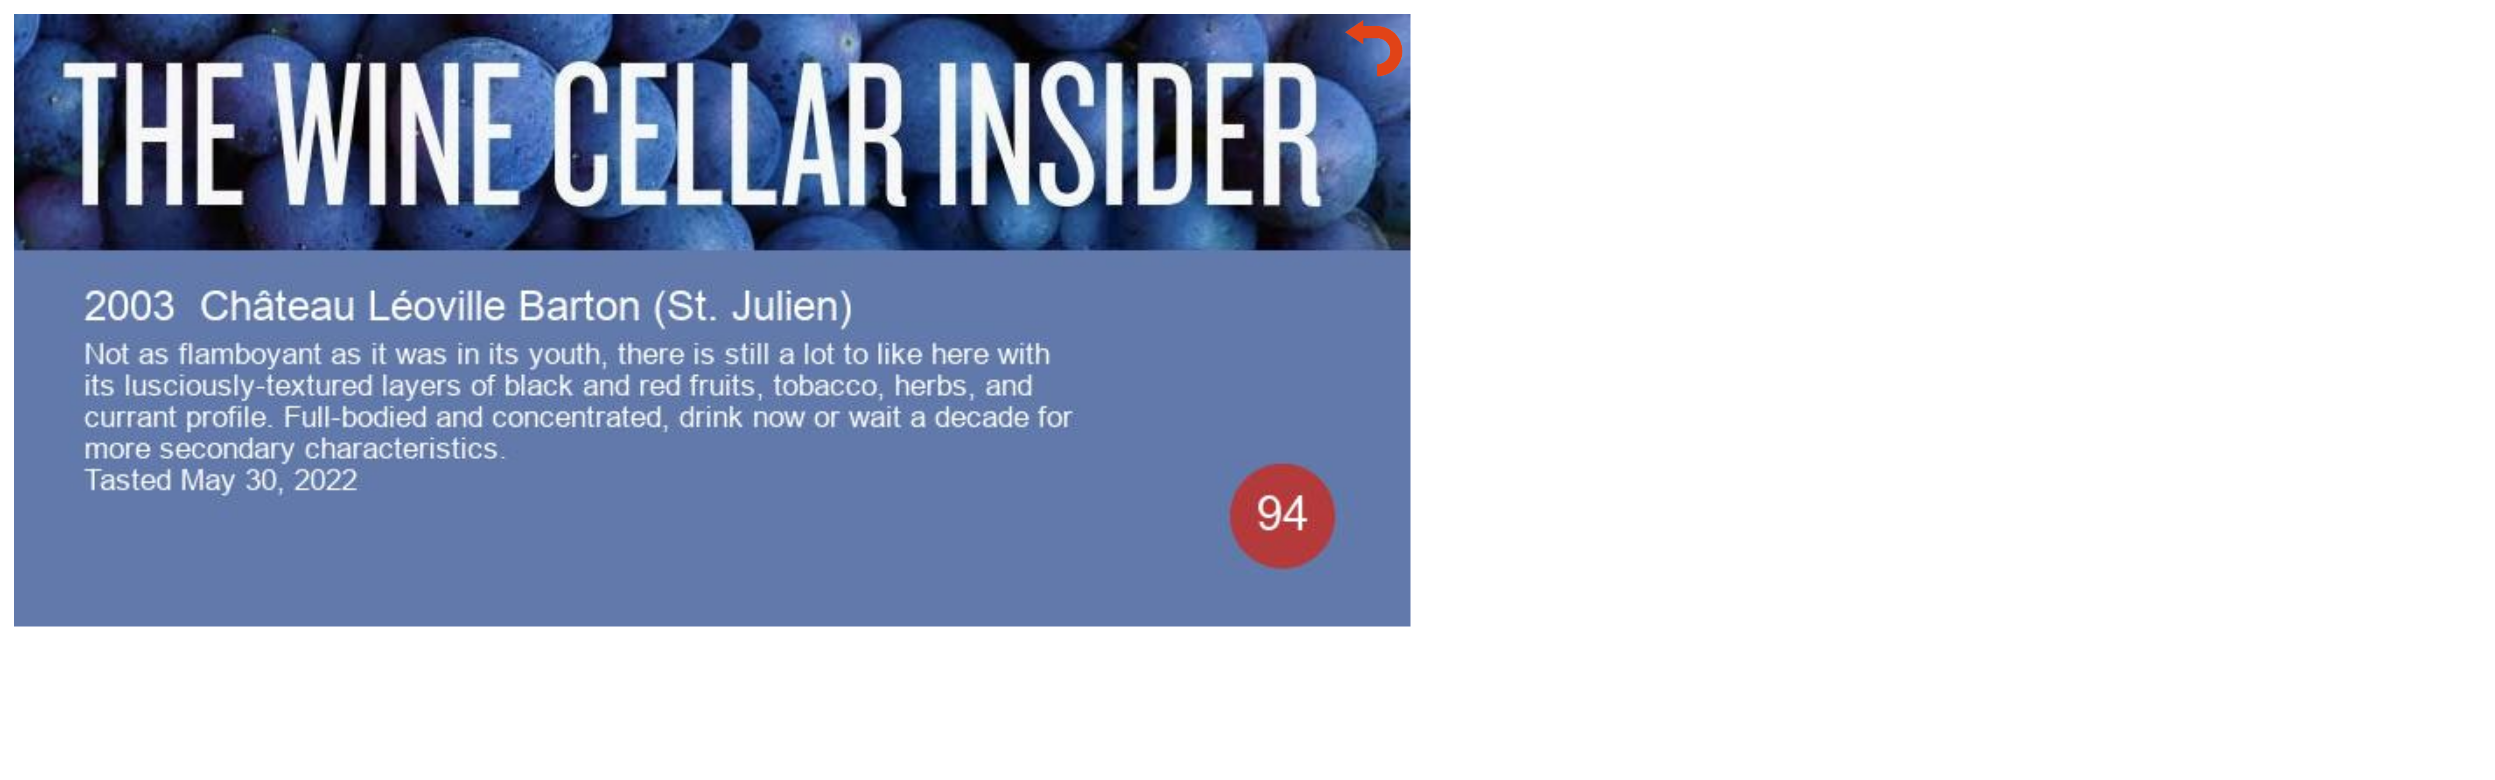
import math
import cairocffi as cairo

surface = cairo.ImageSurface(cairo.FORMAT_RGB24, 2495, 780)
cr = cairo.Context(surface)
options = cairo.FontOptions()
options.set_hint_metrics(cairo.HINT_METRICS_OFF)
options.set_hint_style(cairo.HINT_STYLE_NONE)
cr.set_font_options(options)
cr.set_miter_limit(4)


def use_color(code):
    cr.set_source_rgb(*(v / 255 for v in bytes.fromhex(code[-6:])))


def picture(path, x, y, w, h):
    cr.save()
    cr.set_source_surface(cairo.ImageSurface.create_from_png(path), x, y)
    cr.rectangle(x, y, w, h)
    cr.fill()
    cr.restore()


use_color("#ffffff")
cr.paint()
picture("img1.png", 14, 14, 1397, 613)
picture("img2.png", 1345, 20, 58, 57)
surface.write_to_png("result.png")
